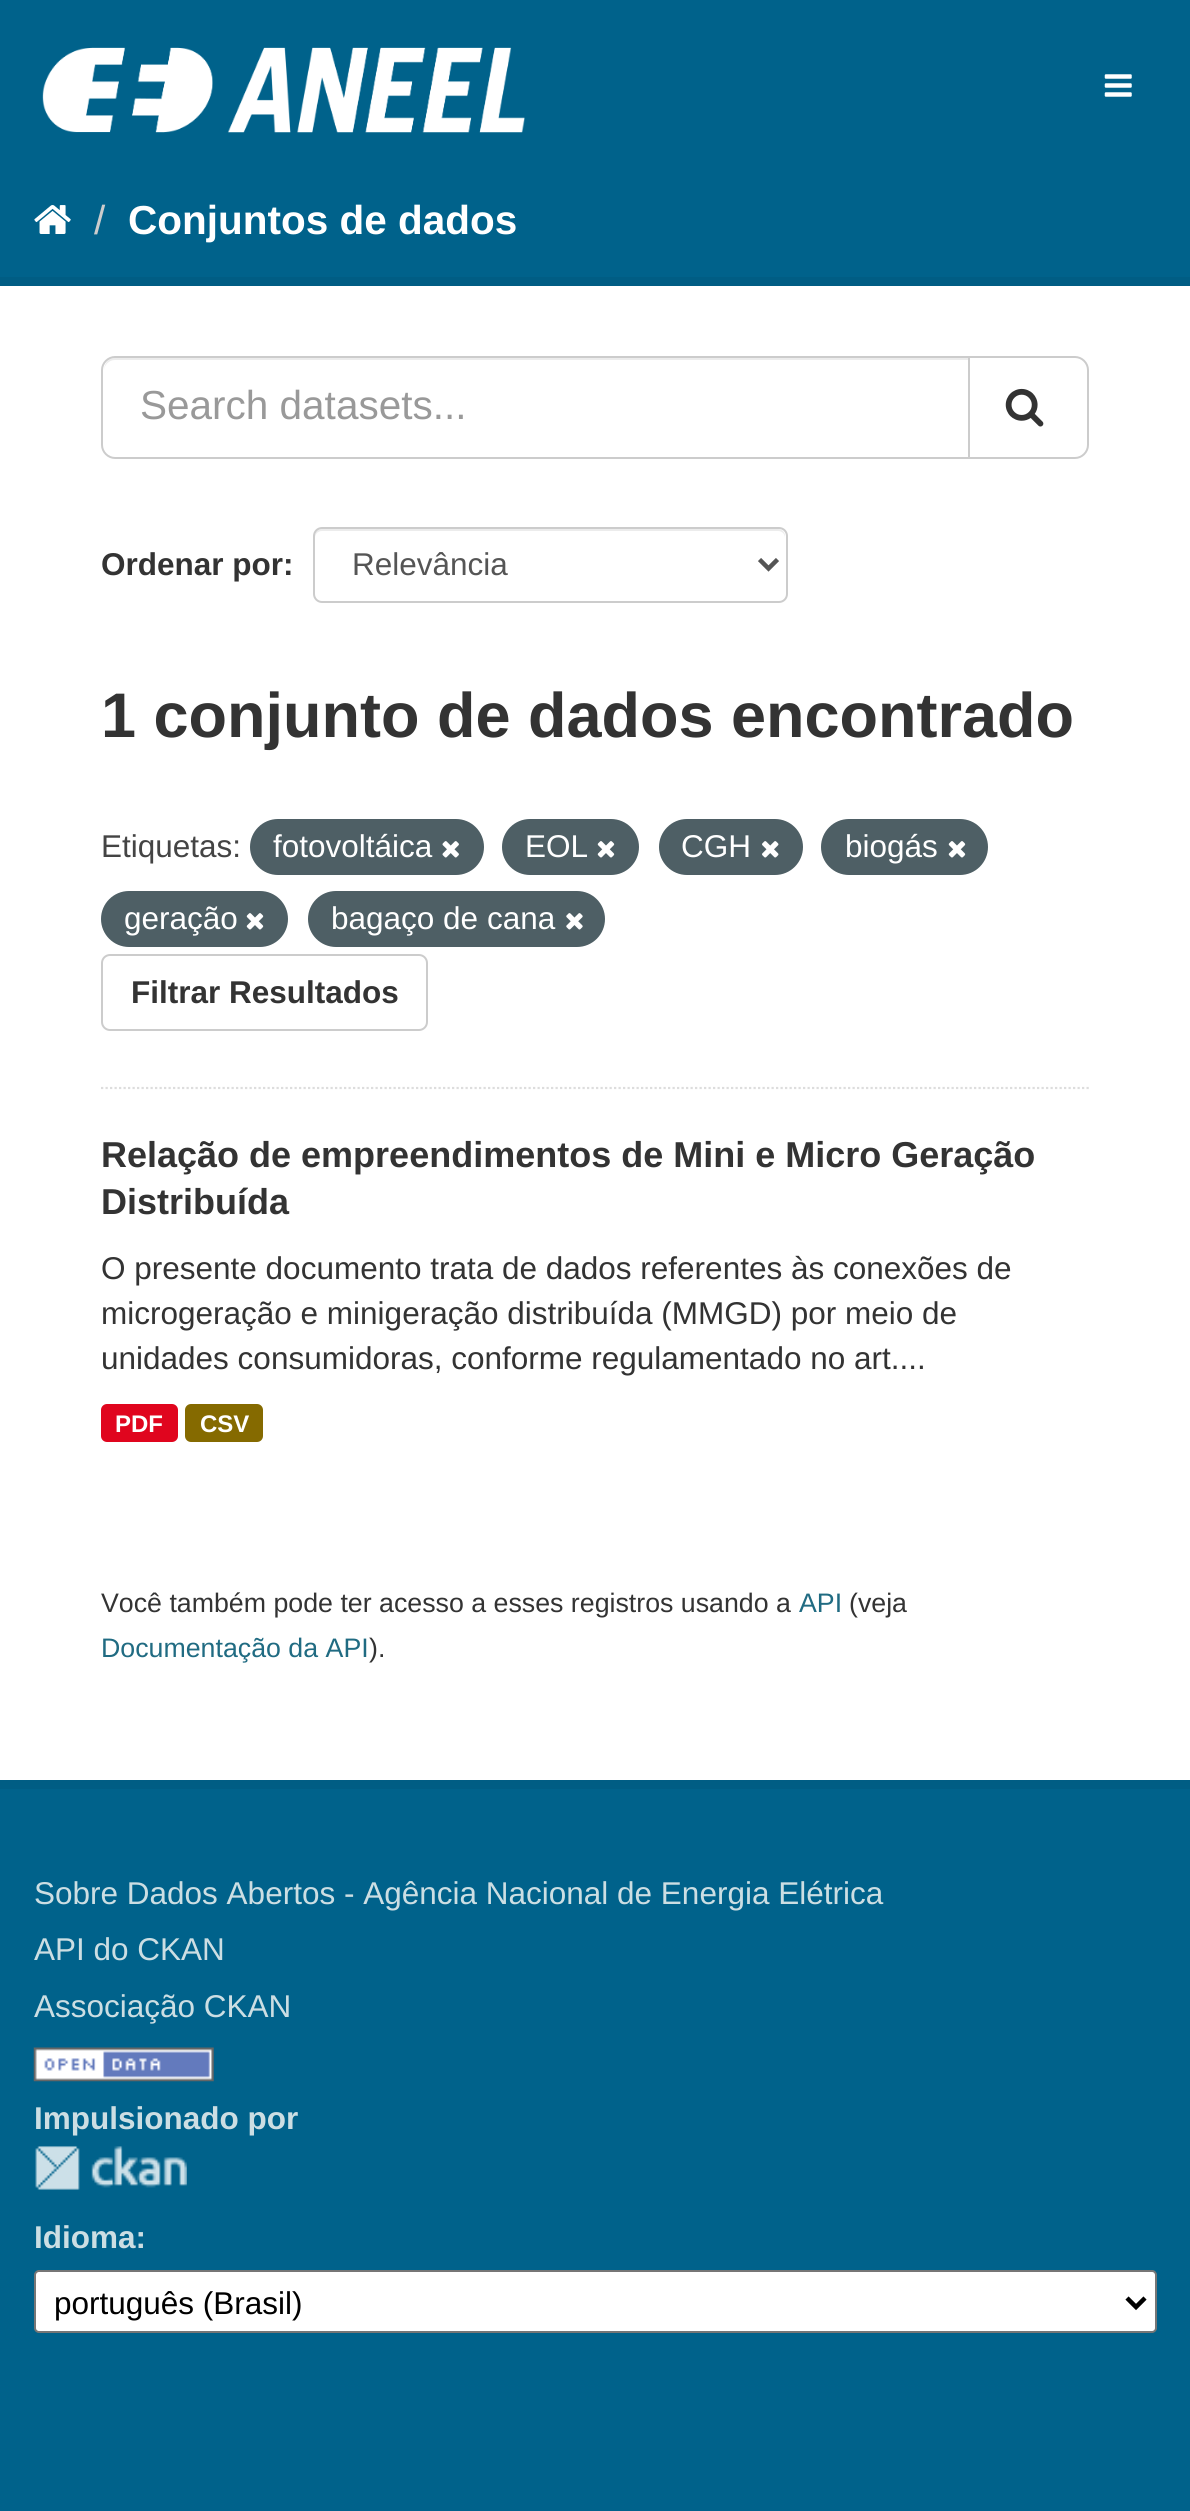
import math
import cairocffi as cairo

surface = cairo.ImageSurface(cairo.FORMAT_RGB24, 1190, 2511)
cr = cairo.Context(surface)
options = cairo.FontOptions()
options.set_hint_metrics(cairo.HINT_METRICS_OFF)
options.set_hint_style(cairo.HINT_STYLE_NONE)
cr.set_font_options(options)
cr.set_miter_limit(4)


def use_color(code):
    cr.set_source_rgb(*(v / 255 for v in bytes.fromhex(code[-6:])))


def round_rect(x, y, w, h, r):
    cr.new_sub_path()
    for i, (u, v) in enumerate([(x + w - r, y + h - r), (x + r, y + h - r), (x + r, y + r), (x + w - r, y + r)]):
        cr.arc(u, v, r, i * math.pi / 2, (i + 1) * math.pi / 2)
    cr.close_path()


def picture(path, x, y, w, h):
    cr.save()
    cr.set_source_surface(cairo.ImageSurface.create_from_png(path), x, y)
    cr.rectangle(x, y, w, h)
    cr.fill()
    cr.restore()


use_color("#00628b")
cr.paint()
picture("img1.png", 42, 47, 483, 86)
picture("img2.png", 1104, 74, 28, 23)
picture("img3.png", 34, 205, 37, 29)
cr.select_font_face("Liberation Sans")
cr.set_font_size(40.5)
use_color("#cccccc")
cr.move_to(94, 234)
cr.show_text("/")
cr.select_font_face("Liberation Sans", cairo.FONT_SLANT_NORMAL, cairo.FONT_WEIGHT_BOLD)
use_color("#ffffff")
cr.move_to(128, 234)
cr.show_text("Conjuntos de dados")
cr.rectangle(-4.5, 281.5, 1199, 1503)
use_color("#005d84")
cr.set_line_width(9)
cr.stroke()
use_color("#ffffff")
cr.rectangle(0, 286, 1190, 1494)
cr.fill()
cr.new_path()
cr.move_to(101, 1088)
cr.line_to(1089, 1088)
use_color("#dddddd")
cr.set_line_width(2.2)
cr.set_dash([2.25, 2.25])
cr.stroke()
use_color("#ececec")
cr.new_path()
cr.move_to(115, 360)
cr.line_to(968, 360)
cr.line_to(968, 358)
cr.line_to(115, 358)
cr.curve_to(108, 358, 104, 364, 104, 371)
cr.curve_to(104, 365, 109, 360, 115, 360)
cr.close_path()
cr.fill()
cr.new_path()
cr.move_to(115, 357)
cr.line_to(969, 357)
cr.line_to(969, 458)
cr.line_to(115, 458)
cr.curve_to(108, 458, 102, 452, 102, 445)
cr.line_to(102, 370)
cr.curve_to(102, 363, 108, 357, 115, 357)
cr.close_path()
use_color("#cccccc")
cr.set_line_width(2)
cr.set_dash([])
cr.stroke()
cr.select_font_face("Liberation Sans")
use_color("#999999")
cr.move_to(140, 419)
cr.show_text("Search datasets...")
use_color("#ffffff")
cr.new_path()
cr.move_to(969, 357)
cr.line_to(1075, 357)
cr.curve_to(1082, 357, 1088, 363, 1088, 370)
cr.line_to(1088, 445)
cr.curve_to(1088, 452, 1082, 458, 1075, 458)
cr.line_to(969, 458)
cr.close_path()
cr.fill_preserve()
use_color("#cccccc")
cr.stroke()
picture("img4.png", 1005, 388, 39, 39)
cr.select_font_face("Liberation Sans", cairo.FONT_SLANT_NORMAL, cairo.FONT_WEIGHT_BOLD)
cr.set_font_size(31.5)
use_color("#333333")
cr.move_to(101, 575)
cr.show_text("Ordenar por:")
use_color("#ececec")
cr.new_path()
cr.move_to(322, 531)
cr.line_to(778, 531)
cr.curve_to(782, 531, 785, 534, 785, 538)
cr.line_to(785, 536)
cr.curve_to(785, 532, 782, 529, 778, 529)
cr.line_to(322, 529)
cr.curve_to(318, 529, 315, 532, 315, 536)
cr.line_to(315, 538)
cr.curve_to(315, 534, 318, 531, 322, 531)
cr.close_path()
cr.fill()
round_rect(314, 528, 473, 74, 8)
use_color("#cccccc")
cr.stroke()
cr.new_path()
cr.move_to(759.5, 559.5)
cr.line_to(768.5, 568.5)
cr.line_to(777.5, 559.5)
use_color("#555555")
cr.set_line_width(4.5)
cr.stroke()
cr.select_font_face("Liberation Sans")
cr.move_to(352, 575)
cr.show_text("Relevância")
cr.select_font_face("Liberation Sans", cairo.FONT_SLANT_NORMAL, cairo.FONT_WEIGHT_BOLD)
cr.set_font_size(63)
use_color("#333333")
cr.move_to(101, 737)
cr.show_text("1 conjunto de dados encontrado")
cr.select_font_face("Liberation Sans")
cr.set_font_size(31.5)
use_color("#444444")
cr.move_to(101, 857)
cr.show_text("Etiquetas:")
use_color("#4e5f65")
round_rect(250, 819, 234, 56, 28)
cr.fill()
use_color("#ffffff")
cr.move_to(273, 857)
cr.show_text("fotovoltáica")
picture("img5.png", 442, 841, 17, 17)
use_color("#4e5f65")
round_rect(502, 819, 137, 56, 28)
cr.fill()
use_color("#ffffff")
cr.move_to(525, 857)
cr.show_text("EOL")
picture("img6.png", 597, 841, 18, 17)
use_color("#4e5f65")
round_rect(659, 819, 144, 56, 28)
cr.fill()
use_color("#ffffff")
cr.move_to(681, 857)
cr.show_text("CGH")
picture("img7.png", 762, 841, 17, 17)
use_color("#4e5f65")
round_rect(821, 819, 167, 56, 28)
cr.fill()
use_color("#ffffff")
cr.move_to(845, 857)
cr.show_text("biogás")
picture("img6.png", 948, 841, 18, 17)
use_color("#4e5f65")
round_rect(101, 891, 187, 56, 28)
cr.fill()
use_color("#ffffff")
cr.move_to(124, 929)
cr.show_text("geração")
picture("img6.png", 246, 913, 18, 17)
use_color("#4e5f65")
round_rect(308, 891, 297, 56, 28)
cr.fill()
use_color("#ffffff")
cr.move_to(331, 929)
cr.show_text("bagaço de cana")
picture("img8.png", 566, 913, 17, 17)
round_rect(102, 955, 325, 75, 8)
use_color("#cccccc")
cr.set_line_width(2)
cr.stroke()
cr.select_font_face("Liberation Sans", cairo.FONT_SLANT_NORMAL, cairo.FONT_WEIGHT_BOLD)
use_color("#333333")
cr.move_to(131, 1003)
cr.show_text("Filtrar Resultados")
cr.set_font_size(36)
cr.move_to(101, 1167)
cr.show_text("Relação de empreendimentos de Mini e Micro Geração")
cr.move_to(101, 1214)
cr.show_text("Distribuída")
cr.select_font_face("Liberation Sans")
cr.set_font_size(31.5)
cr.move_to(101, 1279)
cr.show_text("O presente documento trata de dados referentes às conexões de")
cr.move_to(101, 1324)
cr.show_text("microgeração e minigeração distribuída (MMGD) por meio de")
cr.move_to(101, 1369)
cr.show_text("unidades consumidoras, conforme regulamentado no art....")
use_color("#e0051e")
round_rect(101, 1404, 77, 38, 6)
cr.fill()
cr.select_font_face("Liberation Sans", cairo.FONT_SLANT_NORMAL, cairo.FONT_WEIGHT_BOLD)
cr.set_font_size(24)
use_color("#ffffff")
cr.move_to(115, 1432)
cr.show_text("PDF")
use_color("#856a00")
round_rect(185, 1404, 78, 38, 6)
cr.fill()
use_color("#ffffff")
cr.move_to(200, 1432)
cr.show_text("CSV")
cr.select_font_face("Liberation Sans")
cr.set_font_size(26.75)
use_color("#333333")
cr.move_to(101, 1612)
cr.show_text("Você também pode ter acesso a esses registros usando a")
use_color("#206b82")
cr.move_to(799, 1612)
cr.show_text("API")
use_color("#333333")
cr.move_to(849, 1612)
cr.show_text("(veja")
use_color("#206b82")
cr.move_to(101, 1657)
cr.show_text("Documentação da API")
use_color("#333333")
cr.move_to(369, 1657)
cr.show_text(").")
cr.set_font_size(31.5)
use_color("#ccdee3")
cr.move_to(34, 1904)
cr.show_text("Sobre Dados Abertos - Agência Nacional de Energia Elétrica")
cr.move_to(34, 1960)
cr.show_text("API do CKAN")
cr.move_to(34, 2017)
cr.show_text("Associação CKAN")
picture("img9.png", 33, 2047, 181, 35)
cr.select_font_face("Liberation Sans", cairo.FONT_SLANT_NORMAL, cairo.FONT_WEIGHT_BOLD)
cr.move_to(34, 2129)
cr.show_text("Impulsionado por")
picture("img10.png", 35, 2146, 152, 44)
cr.move_to(34, 2248)
cr.show_text("Idioma:")
use_color("#ffffff")
round_rect(35, 2271, 1121, 61, 4)
cr.fill_preserve()
use_color("#767676")
cr.stroke()
cr.new_path()
cr.move_to(1127, 2298)
cr.line_to(1136, 2307)
cr.line_to(1145, 2298)
use_color("#000000")
cr.set_line_width(4.5)
cr.stroke()
cr.select_font_face("Liberation Sans")
cr.move_to(54, 2314)
cr.show_text("português (Brasil)")
surface.write_to_png("result.png")
